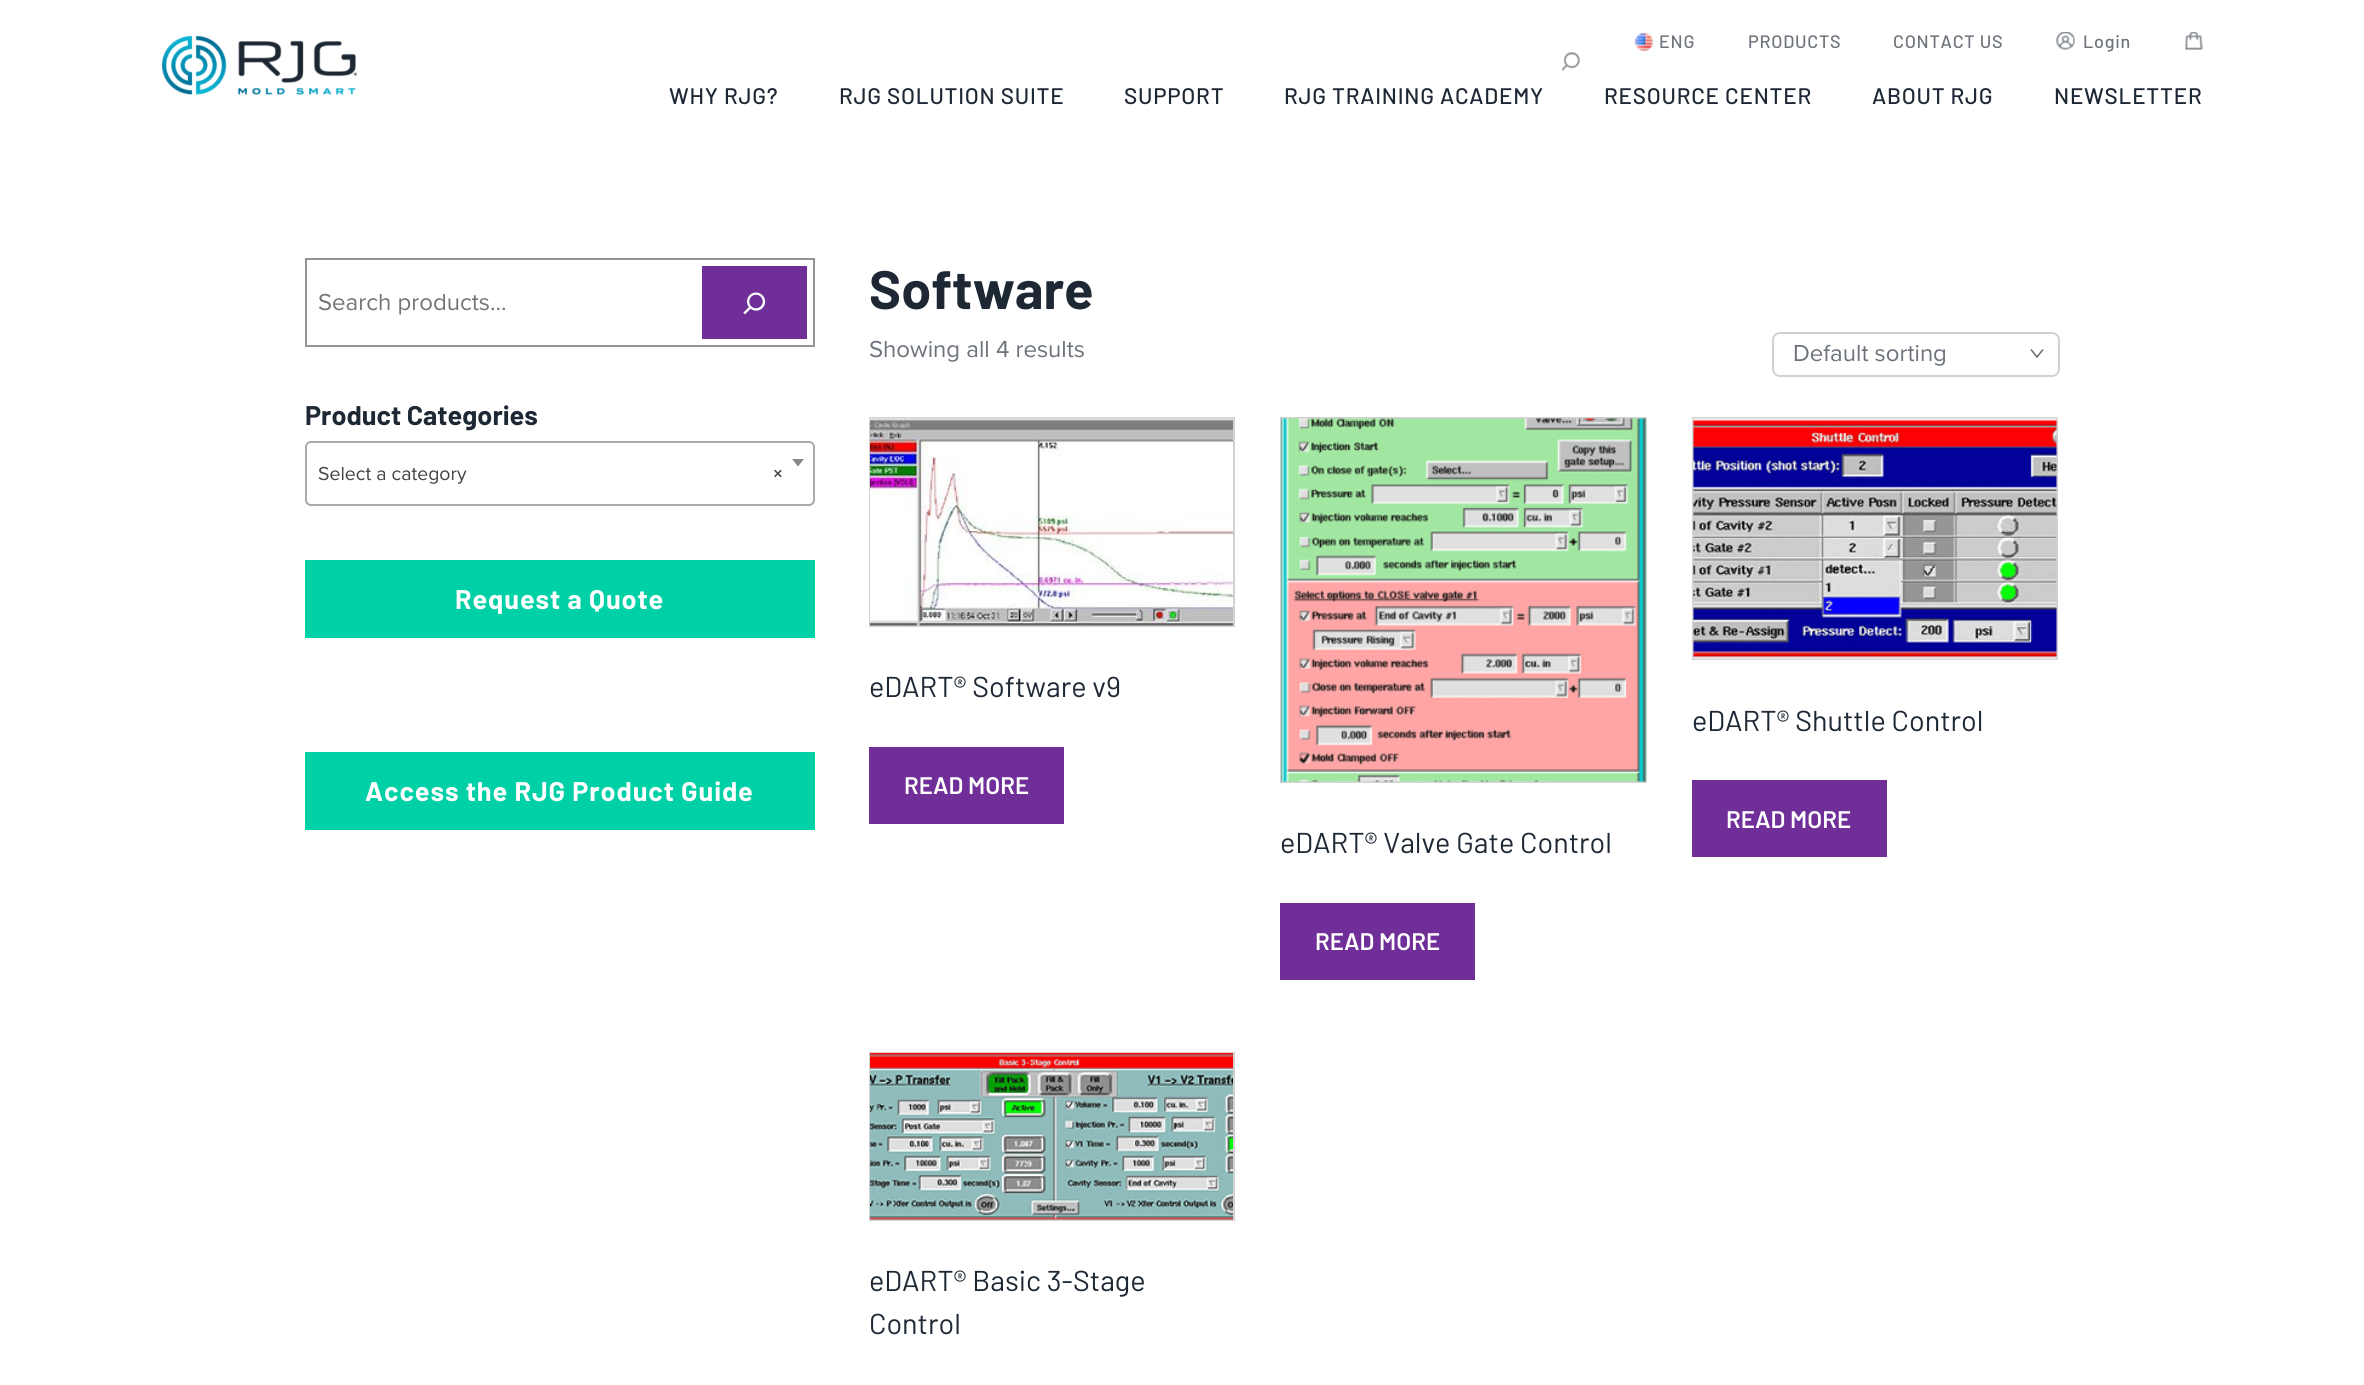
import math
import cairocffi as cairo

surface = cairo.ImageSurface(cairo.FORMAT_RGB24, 2364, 1385)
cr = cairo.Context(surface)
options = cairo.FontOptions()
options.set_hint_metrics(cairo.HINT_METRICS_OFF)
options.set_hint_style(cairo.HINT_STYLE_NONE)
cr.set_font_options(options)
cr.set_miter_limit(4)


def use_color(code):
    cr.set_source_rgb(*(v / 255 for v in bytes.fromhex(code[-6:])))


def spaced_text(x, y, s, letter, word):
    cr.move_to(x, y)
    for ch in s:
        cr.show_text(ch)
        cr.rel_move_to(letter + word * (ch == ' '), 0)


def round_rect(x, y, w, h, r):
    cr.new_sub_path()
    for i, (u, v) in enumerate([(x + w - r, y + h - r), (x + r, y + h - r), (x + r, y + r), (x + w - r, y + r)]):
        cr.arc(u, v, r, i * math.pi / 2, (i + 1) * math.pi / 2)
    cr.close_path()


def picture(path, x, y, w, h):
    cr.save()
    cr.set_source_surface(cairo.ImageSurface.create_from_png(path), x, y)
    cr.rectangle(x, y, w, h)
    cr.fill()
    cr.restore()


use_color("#ffffff")
cr.paint()
picture("img1.png", 162, 35, 195, 60)
picture("img2.png", 1634, 32, 20, 20)
cr.select_font_face("Barlow Medium")
cr.set_font_size(18)
use_color("#6d737b")
spaced_text(1659, 48, "ENG", 0.75, 0)
spaced_text(1748, 48, "PRODUCTS", 0.75, 0)
spaced_text(1893, 48, "CONTACT US", 0.75, 0)
picture("img3.png", 2056, 32, 19, 18)
spaced_text(2083, 48, "Login", 0.75, 0)
picture("img4.png", 2185, 32, 18, 18)
picture("img5.png", 1562, 52, 18, 19)
cr.set_font_size(22.5)
use_color("#1e2835")
spaced_text(669, 104, "WHY RJG?", 0.75, 0)
spaced_text(839, 104, "RJG SOLUTION SUITE", 0.75, 0)
spaced_text(1124, 104, "SUPPORT", 0.75, 0)
spaced_text(1284, 104, "RJG TRAINING ACADEMY", 0.75, 0)
spaced_text(1604, 104, "RESOURCE CENTER", 0.75, 0)
spaced_text(1872, 104, "ABOUT RJG", 0.75, 0)
spaced_text(2054, 104, "NEWSLETTER", 0.75, 0)
cr.rectangle(306, 259, 508, 87)
use_color("#949494")
cr.stroke()
cr.select_font_face("Proxima Nova")
cr.set_font_size(24)
use_color("#757575")
cr.move_to(318, 310)
cr.show_text("Search products…")
use_color("#6f2e98")
cr.rectangle(702, 266, 105, 73)
cr.fill()
picture("img6.png", 743, 292, 23, 23)
cr.select_font_face("Barlow", cairo.FONT_SLANT_NORMAL, cairo.FONT_WEIGHT_BOLD)
cr.set_font_size(27)
use_color("#1e2835")
cr.move_to(305, 425)
cr.show_text("Product Categories")
round_rect(306, 442, 508, 63, 5)
use_color("#aaaaaa")
cr.stroke()
use_color("#888888")
cr.new_path()
cr.move_to(792, 459)
cr.line_to(804, 459)
cr.line_to(798, 466.5)
cr.close_path()
cr.fill()
cr.select_font_face("Proxima Nova")
cr.set_font_size(19.5)
use_color("#444444")
cr.move_to(318, 480)
cr.show_text("Select a category")
cr.select_font_face("Proxima Nova", cairo.FONT_SLANT_NORMAL, cairo.FONT_WEIGHT_BOLD)
cr.move_to(773, 480)
cr.show_text("×")
use_color("#00d0a6")
cr.rectangle(305, 560, 510, 78)
cr.fill()
cr.select_font_face("Barlow", cairo.FONT_SLANT_NORMAL, cairo.FONT_WEIGHT_BOLD)
cr.set_font_size(27)
use_color("#ffffff")
spaced_text(455, 609, "Request a Quote", 0.9, 0)
use_color("#00d0a6")
cr.rectangle(305, 752, 510, 78)
cr.fill()
use_color("#ffffff")
spaced_text(365, 801, "Access the RJG Product Guide", 0.9, 0)
cr.set_font_size(54)
use_color("#1e2835")
cr.move_to(869, 309)
cr.show_text("Software")
cr.select_font_face("Proxima Nova")
cr.set_font_size(24)
use_color("#6d737b")
cr.move_to(869, 357)
cr.show_text("Showing all 4 results")
picture("img7.png", 2030, 349, 14, 9)
round_rect(1773, 333, 286, 43, 7)
use_color("#d2d2d2")
cr.stroke()
use_color("#6d737b")
cr.move_to(1793, 361)
cr.show_text("Default sorting")
cr.rectangle(870, 418, 364, 208)
use_color("#d2d2d2")
cr.stroke()
picture("img8.png", 870, 418, 363, 208)
cr.select_font_face("Barlow")
cr.set_font_size(28.75)
use_color("#1e2835")
cr.move_to(869, 697)
cr.show_text("eDART® Software v9")
use_color("#6f2e98")
cr.rectangle(869, 747, 195, 77)
cr.fill()
cr.select_font_face("Barlow SemiBold")
cr.set_font_size(24)
use_color("#ffffff")
cr.move_to(904, 794)
cr.show_text("READ MORE")
cr.rectangle(1693, 418, 364, 241)
use_color("#d2d2d2")
cr.stroke()
picture("img9.png", 1693, 418, 364, 241)
cr.select_font_face("Barlow")
cr.set_font_size(28.75)
use_color("#1e2835")
cr.move_to(1692, 731)
cr.show_text("eDART® Shuttle Control")
use_color("#6f2e98")
cr.rectangle(1692, 780, 195, 77)
cr.fill()
cr.select_font_face("Barlow SemiBold")
cr.set_font_size(24)
use_color("#ffffff")
cr.move_to(1726, 828)
cr.show_text("READ MORE")
cr.rectangle(1281, 418, 365, 364)
use_color("#d2d2d2")
cr.stroke()
picture("img10.png", 1281, 418, 365, 364)
cr.select_font_face("Barlow")
cr.set_font_size(28.75)
use_color("#1e2835")
cr.move_to(1280, 853)
cr.show_text("eDART® Valve Gate Control")
use_color("#6f2e98")
cr.rectangle(1280, 903, 195, 77)
cr.fill()
cr.select_font_face("Barlow SemiBold")
cr.set_font_size(24)
use_color("#ffffff")
cr.move_to(1315, 950)
cr.show_text("READ MORE")
cr.rectangle(870, 1053, 364, 167)
use_color("#d2d2d2")
cr.stroke()
picture("img11.png", 870, 1053, 363, 167)
cr.select_font_face("Barlow")
cr.set_font_size(28.75)
use_color("#1e2835")
cr.move_to(869, 1291)
cr.show_text("eDART® Basic 3-Stage")
cr.move_to(869, 1334)
cr.show_text("Control")
surface.write_to_png("result.png")
